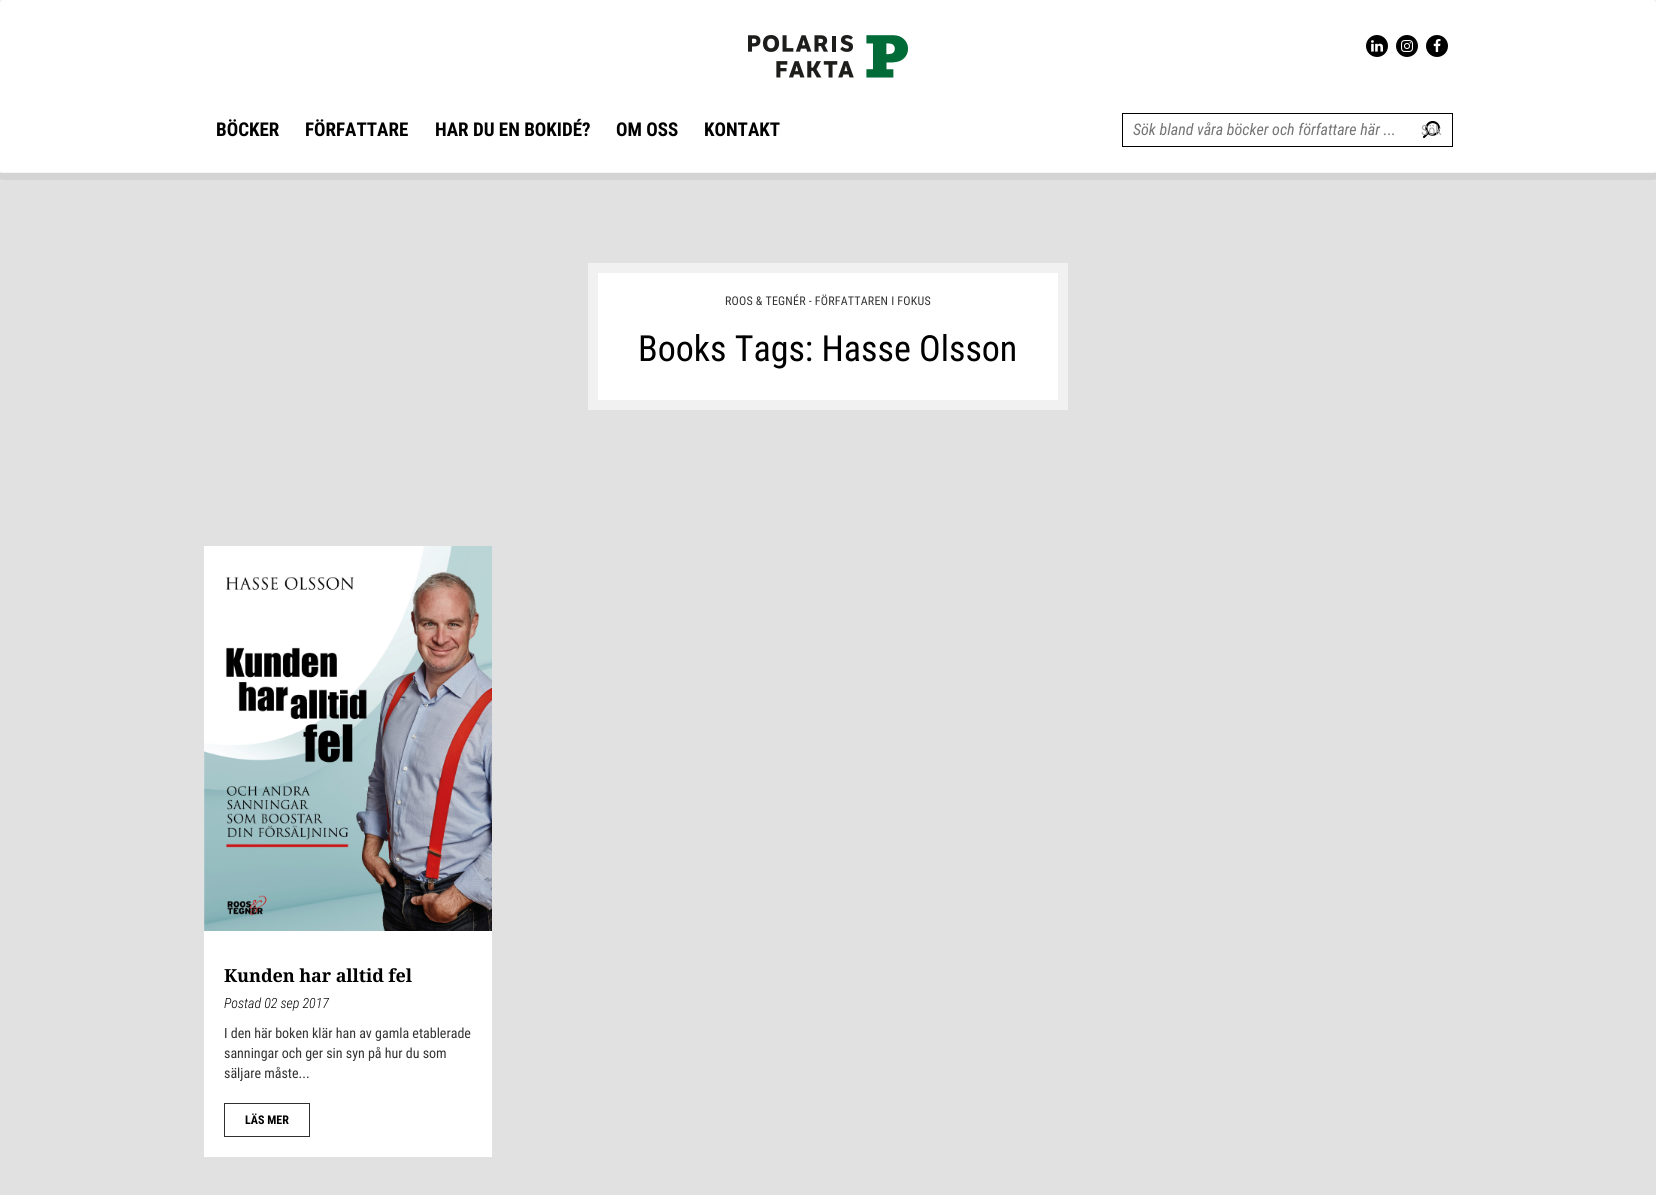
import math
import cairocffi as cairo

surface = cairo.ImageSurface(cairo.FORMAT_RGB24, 1656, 1195)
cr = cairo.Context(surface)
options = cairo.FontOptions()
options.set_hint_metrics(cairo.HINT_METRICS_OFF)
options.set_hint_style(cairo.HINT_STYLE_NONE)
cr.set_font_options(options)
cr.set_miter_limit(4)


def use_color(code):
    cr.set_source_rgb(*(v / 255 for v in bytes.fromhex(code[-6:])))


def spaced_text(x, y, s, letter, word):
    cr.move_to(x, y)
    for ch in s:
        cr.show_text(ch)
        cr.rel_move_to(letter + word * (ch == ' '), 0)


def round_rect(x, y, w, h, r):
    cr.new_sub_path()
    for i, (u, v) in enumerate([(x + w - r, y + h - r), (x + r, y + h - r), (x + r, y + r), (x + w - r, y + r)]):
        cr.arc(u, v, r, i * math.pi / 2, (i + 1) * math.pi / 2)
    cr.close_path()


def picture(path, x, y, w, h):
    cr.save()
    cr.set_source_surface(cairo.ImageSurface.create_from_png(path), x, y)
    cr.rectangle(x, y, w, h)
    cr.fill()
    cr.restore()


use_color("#ffffff")
cr.paint()
use_color("#e1e1e1")
cr.rectangle(0, 173, 1656, 1022)
cr.fill()
round_rect(-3.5, -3.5, 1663, 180, 7.5)
cr.set_source_rgba(0.157, 0.157, 0.157, 0.07)
cr.set_line_width(7)
cr.stroke()
cr.set_source_rgba(0.157, 0.157, 0.157, 0.05)
cr.rectangle(2, 172, 1652, 1)
cr.fill()
picture("img1.png", 748, 35, 160, 43)
use_color("#000000")
cr.arc(1377, 46, 11, 0, 2 * math.pi)
cr.fill()
picture("img2.png", 1371, 40, 12, 12)
cr.arc(1407, 46, 11, 0, 2 * math.pi)
cr.fill()
picture("img3.png", 1401, 40, 12, 12)
cr.arc(1437, 46, 11, 0, 2 * math.pi)
cr.fill()
picture("img4.png", 1433, 39, 8, 13)
cr.select_font_face("Roboto Condensed", cairo.FONT_SLANT_NORMAL, cairo.FONT_WEIGHT_BOLD)
cr.set_font_size(19)
cr.move_to(216, 136)
cr.show_text("BÖCKER")
cr.move_to(305, 136)
cr.show_text("FÖRFATTARE")
cr.move_to(435, 136)
cr.show_text("HAR DU EN BOKIDÉ?")
cr.move_to(616, 136)
cr.show_text("OM OSS")
cr.move_to(704, 136)
cr.show_text("KONTAKT")
cr.rectangle(1122.5, 113.5, 330, 33)
cr.set_line_width(1)
cr.stroke()
cr.select_font_face("Roboto Condensed", cairo.FONT_SLANT_ITALIC)
cr.set_font_size(16)
use_color("#757575")
cr.move_to(1133, 135)
cr.show_text("Sök bland våra böcker och författare här ...")
picture("img5.png", 1423, 121, 17, 17)
cr.select_font_face("Roboto Condensed")
cr.set_font_size(14)
use_color("#a8a8a8")
cr.move_to(1421, 135)
cr.show_text("Sök")
cr.rectangle(593, 268, 470, 137)
use_color("#f1f1f1")
cr.set_line_width(10)
cr.stroke()
use_color("#ffffff")
cr.rectangle(598, 273, 460, 127)
cr.fill()
cr.set_font_size(12)
use_color("#333333")
spaced_text(725, 305, "ROOS & TEGNÉR - FÖRFATTAREN I FOKUS", 0.2, 0)
cr.set_font_size(36)
use_color("#000000")
cr.move_to(638, 361)
cr.show_text("Books Tags: Hasse Olsson")
picture("img6.png", 204, 546, 288, 385)
use_color("#ffffff")
cr.rectangle(204, 931, 288, 226)
cr.fill()
cr.select_font_face("Droid Serif", cairo.FONT_SLANT_NORMAL, cairo.FONT_WEIGHT_BOLD)
cr.set_font_size(18)
use_color("#000000")
spaced_text(224, 982, "Kunden har alltid fel", -0.1, 0)
cr.select_font_face("Roboto Condensed Light", cairo.FONT_SLANT_ITALIC)
cr.set_font_size(14)
cr.move_to(224, 1008)
cr.show_text("Postad 02 sep 2017")
cr.select_font_face("Roboto Condensed")
use_color("#333333")
cr.move_to(224, 1038)
cr.show_text("I den här boken klär han av gamla etablerade")
cr.move_to(224, 1058)
cr.show_text("sanningar och ger sin syn på hur du som")
cr.move_to(224, 1078)
cr.show_text("säljare måste...")
cr.rectangle(224.5, 1103.5, 85, 33)
use_color("#303030")
cr.set_line_width(1)
cr.stroke()
cr.select_font_face("Roboto Condensed", cairo.FONT_SLANT_NORMAL, cairo.FONT_WEIGHT_BOLD)
cr.set_font_size(12)
use_color("#000000")
cr.move_to(245, 1124)
cr.show_text("LÄS MER")
surface.write_to_png("result.png")
